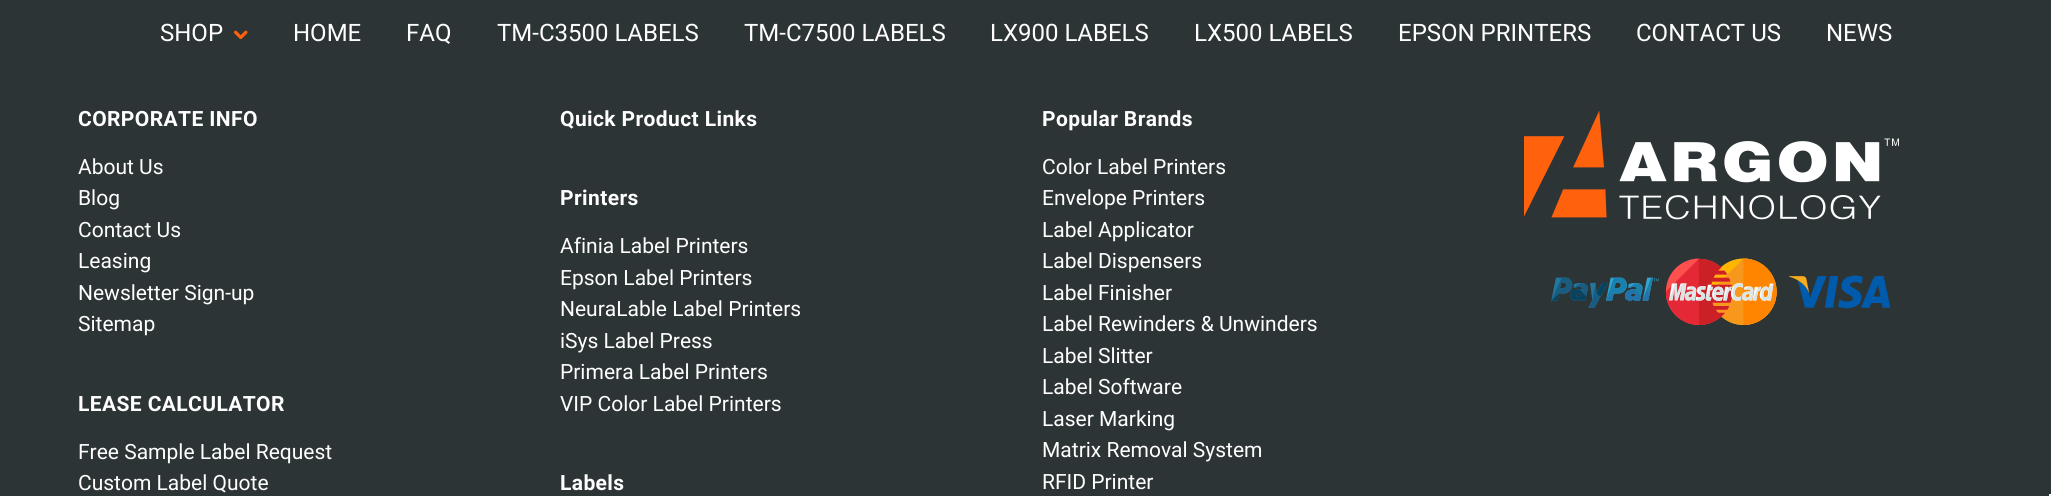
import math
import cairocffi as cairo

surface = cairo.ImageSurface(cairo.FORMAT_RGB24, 2051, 496)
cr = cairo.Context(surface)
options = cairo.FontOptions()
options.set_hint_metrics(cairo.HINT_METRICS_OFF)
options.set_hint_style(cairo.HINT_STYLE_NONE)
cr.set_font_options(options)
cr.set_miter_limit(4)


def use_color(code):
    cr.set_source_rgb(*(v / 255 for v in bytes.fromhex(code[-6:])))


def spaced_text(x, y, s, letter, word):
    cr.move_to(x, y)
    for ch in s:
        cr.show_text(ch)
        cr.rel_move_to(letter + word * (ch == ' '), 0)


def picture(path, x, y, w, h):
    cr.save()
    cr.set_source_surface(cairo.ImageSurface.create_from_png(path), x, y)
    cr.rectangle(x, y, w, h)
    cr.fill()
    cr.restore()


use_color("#2d3436")
cr.paint()
cr.select_font_face("Roboto")
cr.set_font_size(24)
use_color("#ffffff")
cr.move_to(160, 41)
cr.show_text("SHOP")
picture("img1.png", 234, 30, 14, 10)
cr.move_to(293, 41)
cr.show_text("HOME")
cr.move_to(406, 41)
cr.show_text("FAQ")
cr.move_to(497, 41)
cr.show_text("TM-C3500 LABELS")
cr.move_to(744, 41)
cr.show_text("TM-C7500 LABELS")
cr.move_to(990, 41)
cr.show_text("LX900 LABELS")
cr.move_to(1194, 41)
cr.show_text("LX500 LABELS")
cr.move_to(1398, 41)
cr.show_text("EPSON PRINTERS")
cr.move_to(1636, 41)
cr.show_text("CONTACT US")
cr.move_to(1826, 41)
cr.show_text("NEWS")
cr.select_font_face("Roboto", cairo.FONT_SLANT_NORMAL, cairo.FONT_WEIGHT_BOLD)
cr.set_font_size(21)
spaced_text(78, 126, "CORPORATE INFO", 0.4, 0)
cr.select_font_face("Roboto")
cr.move_to(78, 174)
cr.show_text("About Us")
cr.move_to(78, 205)
cr.show_text("Blog")
cr.move_to(78, 237)
cr.show_text("Contact Us")
cr.move_to(78, 268)
cr.show_text("Leasing")
cr.move_to(78, 300)
cr.show_text("Newsletter Sign-up")
cr.move_to(78, 331)
cr.show_text("Sitemap")
cr.select_font_face("Roboto", cairo.FONT_SLANT_NORMAL, cairo.FONT_WEIGHT_BOLD)
spaced_text(78, 411, "LEASE CALCULATOR", 0.4, 0)
cr.select_font_face("Roboto")
cr.move_to(78, 459)
cr.show_text("Free Sample Label Request")
cr.move_to(78, 490)
cr.show_text("Custom Label Quote")
cr.select_font_face("Roboto", cairo.FONT_SLANT_NORMAL, cairo.FONT_WEIGHT_BOLD)
spaced_text(560, 126, "Quick Product Links", 0.4, 0)
spaced_text(560, 205, "Printers", 0.4, 0)
cr.select_font_face("Roboto")
cr.move_to(560, 253)
cr.show_text("Afinia Label Printers")
cr.move_to(560, 285)
cr.show_text("Epson Label Printers")
cr.move_to(560, 316)
cr.show_text("NeuraLable Label Printers")
cr.move_to(560, 348)
cr.show_text("iSys Label Press")
cr.move_to(560, 379)
cr.show_text("Primera Label Printers")
cr.move_to(560, 411)
cr.show_text("VIP Color Label Printers")
cr.select_font_face("Roboto", cairo.FONT_SLANT_NORMAL, cairo.FONT_WEIGHT_BOLD)
spaced_text(560, 490, "Labels", 0.4, 0)
spaced_text(1042, 126, "Popular Brands", 0.4, 0)
cr.select_font_face("Roboto")
cr.move_to(1042, 174)
cr.show_text("Color Label Printers")
cr.move_to(1042, 205)
cr.show_text("Envelope Printers")
cr.move_to(1042, 237)
cr.show_text("Label Applicator")
cr.move_to(1042, 268)
cr.show_text("Label Dispensers")
cr.move_to(1042, 300)
cr.show_text("Label Finisher")
cr.move_to(1042, 331)
cr.show_text("Label Rewinders & Unwinders")
cr.move_to(1042, 363)
cr.show_text("Label Slitter")
cr.move_to(1042, 394)
cr.show_text("Label Software")
cr.move_to(1042, 426)
cr.show_text("Laser Marking")
cr.move_to(1042, 457)
cr.show_text("Matrix Removal System")
cr.move_to(1042, 489)
cr.show_text("RFID Printer")
picture("img2.png", 1524, 110, 375, 110)
picture("img3.png", 1551, 277, 108, 31)
picture("img4.png", 1665, 258, 112, 67)
picture("img5.png", 1789, 275, 102, 34)
use_color("#f5f5f5")
cr.rectangle(2049, 494, 2, 2)
cr.fill()
surface.write_to_png("result.png")
